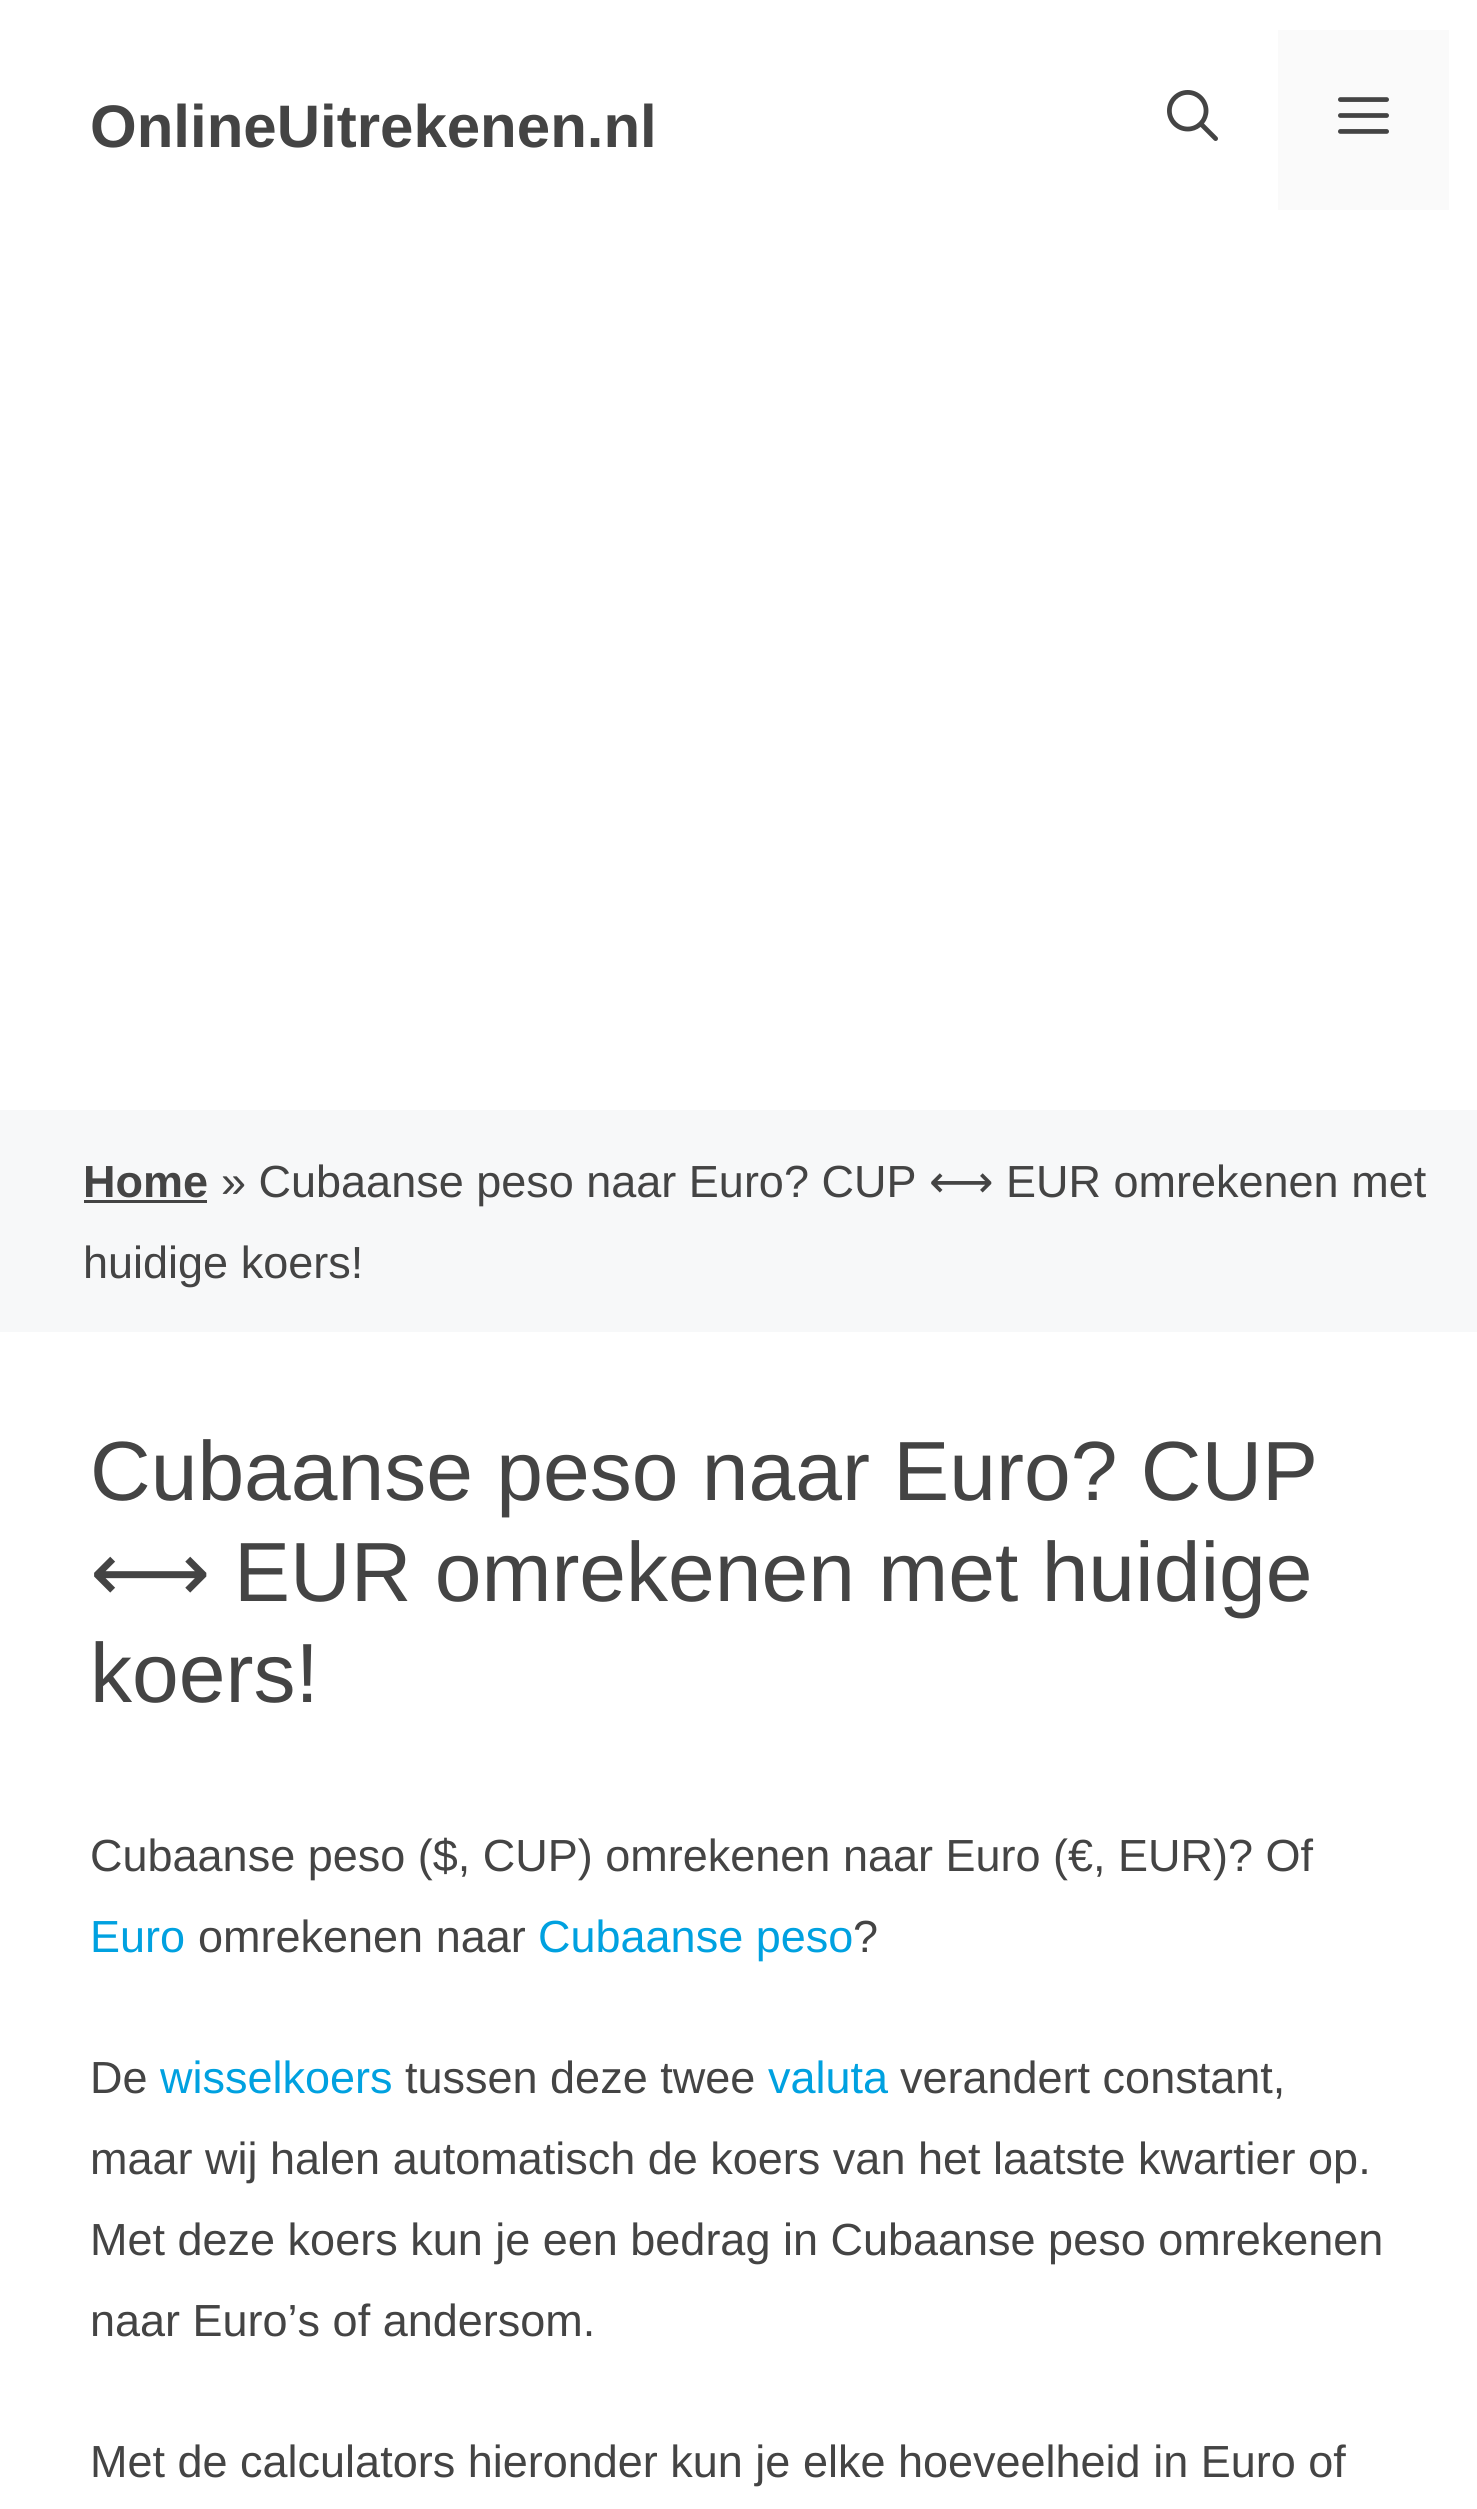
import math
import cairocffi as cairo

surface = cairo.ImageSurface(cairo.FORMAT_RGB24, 1477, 2509)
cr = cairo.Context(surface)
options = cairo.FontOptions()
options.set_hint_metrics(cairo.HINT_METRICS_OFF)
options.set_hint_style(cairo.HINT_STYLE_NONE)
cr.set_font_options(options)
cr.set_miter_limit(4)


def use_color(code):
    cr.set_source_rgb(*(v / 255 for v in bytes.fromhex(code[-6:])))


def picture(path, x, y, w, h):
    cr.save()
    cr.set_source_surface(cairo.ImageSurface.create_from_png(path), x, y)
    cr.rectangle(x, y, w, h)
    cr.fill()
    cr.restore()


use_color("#f7f8f9")
cr.paint()
use_color("#ffffff")
cr.rectangle(0, 0, 1477, 1110)
cr.fill()
cr.select_font_face("Liberation Sans", cairo.FONT_SLANT_NORMAL, cairo.FONT_WEIGHT_BOLD)
cr.set_font_size(60)
use_color("#444444")
cr.move_to(90, 147)
cr.show_text("OnlineUitrekenen.nl")
picture("img1.png", 1167, 90, 51, 51)
use_color("#fafafa")
cr.rectangle(1278, 30, 171, 180)
cr.fill()
picture("img2.png", 1338, 97, 51, 37)
cr.set_font_size(45)
use_color("#444444")
cr.move_to(83, 1197)
cr.show_text("Home")
cr.rectangle(84, 1200, 123, 3)
cr.fill()
cr.select_font_face("Liberation Sans")
cr.move_to(221, 1197)
cr.show_text("» Cubaanse peso naar Euro? CUP")
cr.select_font_face("DejaVu Sans")
cr.move_to(929, 1197)
cr.show_text("⟷")
cr.select_font_face("Liberation Sans")
cr.move_to(1006, 1197)
cr.show_text("EUR omrekenen met")
cr.move_to(83, 1278)
cr.show_text("huidige koers!")
use_color("#ffffff")
cr.rectangle(0, 1332, 1477, 1177)
cr.fill()
cr.set_font_size(84)
use_color("#444444")
cr.move_to(90, 1500)
cr.show_text("Cubaanse peso naar Euro? CUP")
cr.select_font_face("DejaVu Sans")
cr.move_to(90, 1601)
cr.show_text("⟷")
cr.select_font_face("Liberation Sans")
cr.move_to(234, 1601)
cr.show_text("EUR omrekenen met huidige")
cr.move_to(90, 1702)
cr.show_text("koers!")
cr.set_font_size(45)
cr.move_to(90, 1871)
cr.show_text("Cubaanse peso ($, CUP) omrekenen naar Euro (€, EUR)? Of")
use_color("#00a1e0")
cr.move_to(90, 1952)
cr.show_text("Euro")
use_color("#444444")
cr.move_to(198, 1952)
cr.show_text("omrekenen naar")
use_color("#00a1e0")
cr.move_to(538, 1952)
cr.show_text("Cubaanse peso")
use_color("#444444")
cr.move_to(853, 1952)
cr.show_text("?")
cr.move_to(90, 2093)
cr.show_text("De")
use_color("#00a1e0")
cr.move_to(160, 2093)
cr.show_text("wisselkoers")
use_color("#444444")
cr.move_to(405, 2093)
cr.show_text("tussen deze twee")
use_color("#00a1e0")
cr.move_to(768, 2093)
cr.show_text("valuta")
use_color("#444444")
cr.move_to(900, 2093)
cr.show_text("verandert constant,")
cr.move_to(90, 2174)
cr.show_text("maar wij halen automatisch de koers van het laatste kwartier op.")
cr.move_to(90, 2255)
cr.show_text("Met deze koers kun je een bedrag in Cubaanse peso omrekenen")
cr.move_to(90, 2336)
cr.show_text("naar Euro’s of andersom.")
cr.move_to(90, 2477)
cr.show_text("Met de calculators hieronder kun je elke hoeveelheid in Euro of")
surface.write_to_png("result.png")
